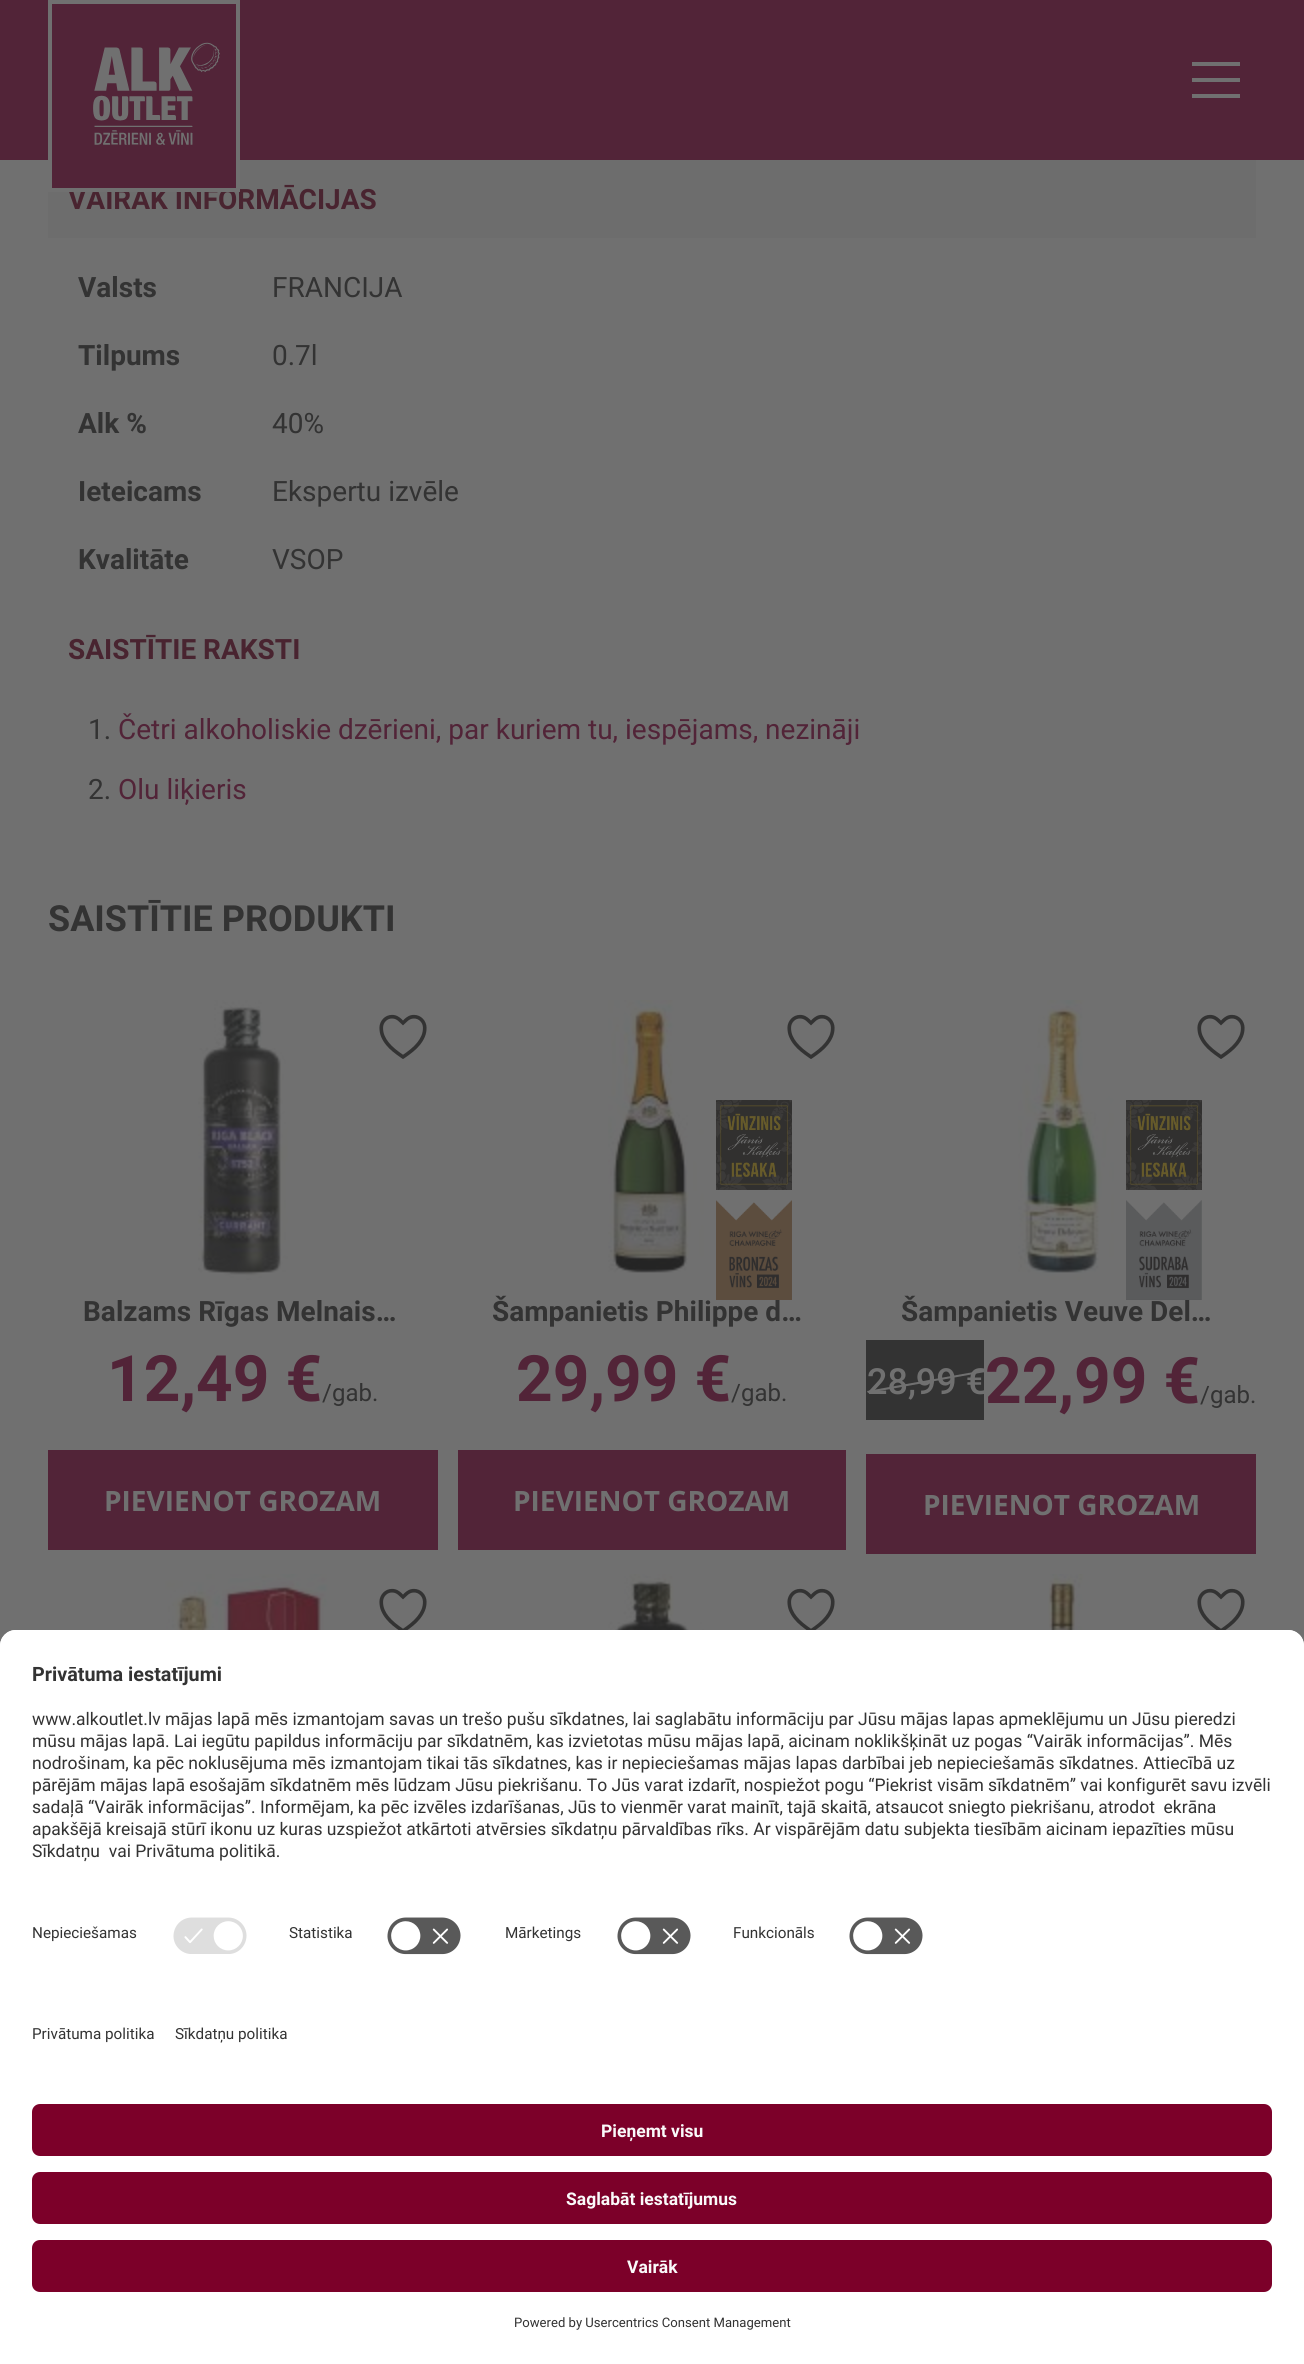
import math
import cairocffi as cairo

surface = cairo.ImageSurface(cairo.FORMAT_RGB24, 1304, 2364)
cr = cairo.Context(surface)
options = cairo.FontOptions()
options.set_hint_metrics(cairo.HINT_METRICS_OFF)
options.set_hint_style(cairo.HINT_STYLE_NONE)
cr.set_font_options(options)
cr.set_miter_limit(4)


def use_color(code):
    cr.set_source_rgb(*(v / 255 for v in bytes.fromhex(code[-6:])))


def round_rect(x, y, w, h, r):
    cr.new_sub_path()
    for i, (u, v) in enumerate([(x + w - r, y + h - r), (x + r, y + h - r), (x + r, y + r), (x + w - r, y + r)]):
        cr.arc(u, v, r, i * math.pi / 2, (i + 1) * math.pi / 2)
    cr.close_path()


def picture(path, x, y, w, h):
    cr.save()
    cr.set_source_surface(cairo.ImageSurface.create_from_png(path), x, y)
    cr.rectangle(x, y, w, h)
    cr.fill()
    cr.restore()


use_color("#707070")
cr.paint()
use_color("#522438")
cr.rectangle(0, 0, 1304, 160)
cr.fill()
use_color("#6d6d6d")
cr.rectangle(48, 160, 1208, 78)
cr.fill()
cr.select_font_face("Roboto", cairo.FONT_SLANT_NORMAL, cairo.FONT_WEIGHT_BOLD)
cr.set_font_size(28)
use_color("#492430")
cr.move_to(68, 209)
cr.show_text("VAIRĀK INFORMĀCIJAS")
cr.rectangle(50, 2, 188, 188)
use_color("#707070")
cr.set_line_width(4)
cr.stroke()
picture("img1.png", 52, 42, 184, 146)
cr.new_path()
cr.move_to(1192, 62)
cr.line_to(1192, 66)
cr.line_to(1240, 66)
cr.line_to(1240, 62)
cr.close_path()
cr.move_to(1192, 82)
cr.line_to(1240, 82)
cr.line_to(1240, 78)
cr.line_to(1192, 78)
cr.close_path()
cr.move_to(1192, 98)
cr.line_to(1240, 98)
cr.line_to(1240, 94)
cr.line_to(1192, 94)
cr.close_path()
cr.fill()
use_color("#333333")
cr.move_to(78, 297)
cr.show_text("Valsts")
cr.select_font_face("Roboto")
cr.move_to(272, 297)
cr.show_text("FRANCIJA")
cr.select_font_face("Roboto", cairo.FONT_SLANT_NORMAL, cairo.FONT_WEIGHT_BOLD)
cr.move_to(78, 365)
cr.show_text("Tilpums")
cr.select_font_face("Roboto")
cr.move_to(272, 365)
cr.show_text("0.7l")
cr.select_font_face("Roboto", cairo.FONT_SLANT_NORMAL, cairo.FONT_WEIGHT_BOLD)
cr.move_to(78, 433)
cr.show_text("Alk %")
cr.select_font_face("Roboto")
cr.move_to(272, 433)
cr.show_text("40%")
cr.select_font_face("Roboto", cairo.FONT_SLANT_NORMAL, cairo.FONT_WEIGHT_BOLD)
cr.move_to(78, 501)
cr.show_text("Ieteicams")
cr.select_font_face("Roboto")
cr.move_to(272, 501)
cr.show_text("Ekspertu izvēle")
cr.select_font_face("Roboto", cairo.FONT_SLANT_NORMAL, cairo.FONT_WEIGHT_BOLD)
cr.move_to(78, 569)
cr.show_text("Kvalitāte")
cr.select_font_face("Roboto")
cr.move_to(272, 569)
cr.show_text("VSOP")
cr.select_font_face("Roboto", cairo.FONT_SLANT_NORMAL, cairo.FONT_WEIGHT_BOLD)
use_color("#492430")
cr.move_to(68, 659)
cr.show_text("SAISTĪTIE RAKSTI")
cr.select_font_face("Roboto")
use_color("#333333")
cr.move_to(88, 739)
cr.show_text("1.")
use_color("#522438")
cr.move_to(118, 739)
cr.show_text("Četri alkoholiskie dzērieni, par kuriem tu, iespējams, nezināji")
use_color("#333333")
cr.move_to(88, 799)
cr.show_text("2.")
use_color("#522438")
cr.move_to(118, 799)
cr.show_text("Olu liķieris")
cr.select_font_face("Roboto", cairo.FONT_SLANT_NORMAL, cairo.FONT_WEIGHT_BOLD)
cr.set_font_size(36)
use_color("#333333")
cr.move_to(48, 931)
cr.show_text("SAISTĪTIE PRODUKTI")
picture("img2.png", 198, 1000, 90, 280)
cr.set_font_size(28)
cr.move_to(83, 1321)
cr.show_text("Balzams Rīgas Melnais…")
cr.set_font_size(64)
use_color("#522438")
cr.move_to(107, 1401)
cr.show_text("12,49 €")
cr.select_font_face("Roboto")
cr.set_font_size(24)
use_color("#333333")
cr.move_to(322, 1401)
cr.show_text("/gab.")
picture("img3.png", 379, 1014, 48, 45)
use_color("#522438")
cr.rectangle(48, 1450, 390, 100)
cr.fill()
cr.select_font_face("Open Sans", cairo.FONT_SLANT_NORMAL, cairo.FONT_WEIGHT_BOLD)
cr.set_font_size(28)
use_color("#707070")
cr.move_to(104, 1511)
cr.show_text("PIEVIENOT GROZAM")
picture("img4.png", 608, 1000, 96, 273)
picture("img5.png", 716, 1100, 76, 90)
cr.select_font_face("Roboto", cairo.FONT_SLANT_NORMAL, cairo.FONT_WEIGHT_BOLD)
use_color("#333333")
cr.move_to(492, 1321)
cr.show_text("Šampanietis Philippe d…")
picture("img6.png", 716, 1200, 76, 100)
cr.set_font_size(64)
use_color("#522438")
cr.move_to(516, 1401)
cr.show_text("29,99 €")
cr.select_font_face("Roboto")
cr.set_font_size(24)
use_color("#333333")
cr.move_to(731, 1401)
cr.show_text("/gab.")
picture("img3.png", 787, 1014, 48, 45)
use_color("#522438")
cr.rectangle(458, 1450, 388, 100)
cr.fill()
cr.select_font_face("Open Sans", cairo.FONT_SLANT_NORMAL, cairo.FONT_WEIGHT_BOLD)
cr.set_font_size(28)
use_color("#707070")
cr.move_to(513, 1511)
cr.show_text("PIEVIENOT GROZAM")
picture("img7.png", 1018, 1000, 96, 280)
picture("img8.png", 1126, 1100, 76, 90)
cr.select_font_face("Roboto", cairo.FONT_SLANT_NORMAL, cairo.FONT_WEIGHT_BOLD)
use_color("#333333")
cr.move_to(901, 1321)
cr.show_text("Šampanietis Veuve Del…")
picture("img9.png", 1126, 1200, 76, 100)
cr.rectangle(866, 1340, 118, 80)
cr.fill()
cr.select_font_face("Roboto Medium")
cr.set_font_size(36)
use_color("#707070")
cr.move_to(867, 1394)
cr.show_text("28,99 €")
cr.new_path()
cr.move_to(867, 1391)
cr.line_to(985, 1370)
cr.line_to(985, 1372)
cr.line_to(868, 1393)
cr.close_path()
cr.fill()
cr.select_font_face("Roboto", cairo.FONT_SLANT_NORMAL, cairo.FONT_WEIGHT_BOLD)
cr.set_font_size(64)
use_color("#522438")
cr.move_to(985, 1403)
cr.show_text("22,99 €")
cr.select_font_face("Roboto")
cr.set_font_size(24)
use_color("#333333")
cr.move_to(1200, 1403)
cr.show_text("/gab.")
picture("img3.png", 1197, 1014, 48, 45)
use_color("#522438")
cr.rectangle(866, 1454, 390, 100)
cr.fill()
cr.select_font_face("Open Sans", cairo.FONT_SLANT_NORMAL, cairo.FONT_WEIGHT_BOLD)
cr.set_font_size(28)
use_color("#707070")
cr.move_to(923, 1515)
cr.show_text("PIEVIENOT GROZAM")
picture("img10.png", 134, 1574, 194, 56)
picture("img11.png", 379, 1588, 48, 42)
picture("img12.png", 608, 1574, 96, 56)
picture("img11.png", 787, 1588, 48, 42)
picture("img13.png", 1029, 1574, 86, 56)
picture("img11.png", 1197, 1588, 48, 42)
use_color("#ffffff")
cr.new_path()
cr.move_to(16, 1630)
cr.line_to(1288, 1630)
cr.curve_to(1297, 1630, 1304, 1637, 1304, 1646)
cr.line_to(1304, 1990)
cr.line_to(0, 1990)
cr.line_to(0, 1646)
cr.curve_to(0, 1637, 7, 1630, 16, 1630)
cr.close_path()
cr.fill()
cr.new_path()
cr.move_to(16, 1630)
cr.line_to(1288, 1630)
cr.curve_to(1297, 1630, 1304, 1637, 1304, 1646)
cr.line_to(1304, 1902)
cr.line_to(0, 1902)
cr.line_to(0, 1646)
cr.curve_to(0, 1637, 7, 1630, 16, 1630)
cr.close_path()
cr.fill()
cr.select_font_face("Roboto", cairo.FONT_SLANT_NORMAL, cairo.FONT_WEIGHT_BOLD)
cr.set_font_size(19.75)
use_color("#333333")
cr.move_to(32, 1681)
cr.show_text("Privātuma iestatījumi")
cr.select_font_face("Roboto")
cr.set_font_size(17.5)
cr.move_to(32, 1725)
cr.show_text("www.alkoutlet.lv mājas lapā mēs izmantojam savas un trešo pušu sīkdatnes, lai saglabātu informāciju par Jūsu mājas lapas apmeklējumu un Jūsu pieredzi")
cr.move_to(32, 1747)
cr.show_text("mūsu mājas lapā. Lai iegūtu papildus informāciju par sīkdatnēm, kas izvietotas mūsu mājas lapā, aicinam noklikšķināt uz pogas “Vairāk informācijas”. Mēs")
cr.move_to(32, 1769)
cr.show_text("nodrošinam, ka pēc noklusējuma mēs izmantojam tikai tās sīkdatnes, kas ir nepieciešamas mājas lapas darbībai jeb nepieciešamās sīkdatnes. Attiecībā uz")
cr.move_to(32, 1791)
cr.show_text("pārējām mājas lapā esošajām sīkdatnēm mēs lūdzam Jūsu piekrišanu. To Jūs varat izdarīt, nospiežot pogu “Piekrist visām sīkdatnēm” vai konfigurēt savu izvēli")
cr.move_to(32, 1813)
cr.show_text("sadaļā “Vairāk informācijas”. Informējam, ka pēc izvēles izdarīšanas, Jūs to vienmēr varat mainīt, tajā skaitā, atsaucot sniegto piekrišanu, atrodot  ekrāna")
cr.move_to(32, 1835)
cr.show_text("apakšējā kreisajā stūrī ikonu uz kuras uzspiežot atkārtoti atvērsies sīkdatņu pārvaldības rīks. Ar vispārējām datu subjekta tiesībām aicinam iepazīties mūsu")
cr.move_to(32, 1857)
cr.show_text("Sīkdatņu  vai Privātuma politikā.")
cr.set_font_size(15.25)
cr.move_to(32, 1938)
cr.show_text("Nepieciešamas")
picture("img14.png", 173, 1917, 74, 37)
cr.move_to(289, 1938)
cr.show_text("Statistika")
picture("img15.png", 387, 1917, 74, 38)
cr.move_to(505, 1938)
cr.show_text("Mārketings")
picture("img15.png", 617, 1917, 74, 38)
cr.move_to(733, 1938)
cr.show_text("Funkcionāls")
picture("img15.png", 849, 1917, 74, 38)
use_color("#ffffff")
cr.rectangle(0, 1990, 1304, 374)
cr.fill()
use_color("#333333")
cr.move_to(32, 2039)
cr.show_text("Privātuma politika")
cr.move_to(175, 2039)
cr.show_text("Sīkdatņu politika")
use_color("#7c0029")
round_rect(32, 2104, 1240, 52, 8)
cr.fill()
cr.select_font_face("Roboto", cairo.FONT_SLANT_NORMAL, cairo.FONT_WEIGHT_BOLD)
cr.set_font_size(17.5)
use_color("#fafafa")
cr.move_to(601, 2137)
cr.show_text("Pieņemt visu")
use_color("#7c0029")
round_rect(32, 2172, 1240, 52, 8)
cr.fill()
use_color("#fafafa")
cr.move_to(566, 2205)
cr.show_text("Saglabāt iestatījumus")
use_color("#7c0029")
round_rect(32, 2240, 1240, 52, 8)
cr.fill()
use_color("#fafafa")
cr.move_to(627, 2273)
cr.show_text("Vairāk")
cr.select_font_face("Roboto")
cr.set_font_size(13.1)
use_color("#333333")
cr.move_to(514, 2327)
cr.show_text("Powered by Usercentrics Consent Management")
surface.write_to_png("result.png")
